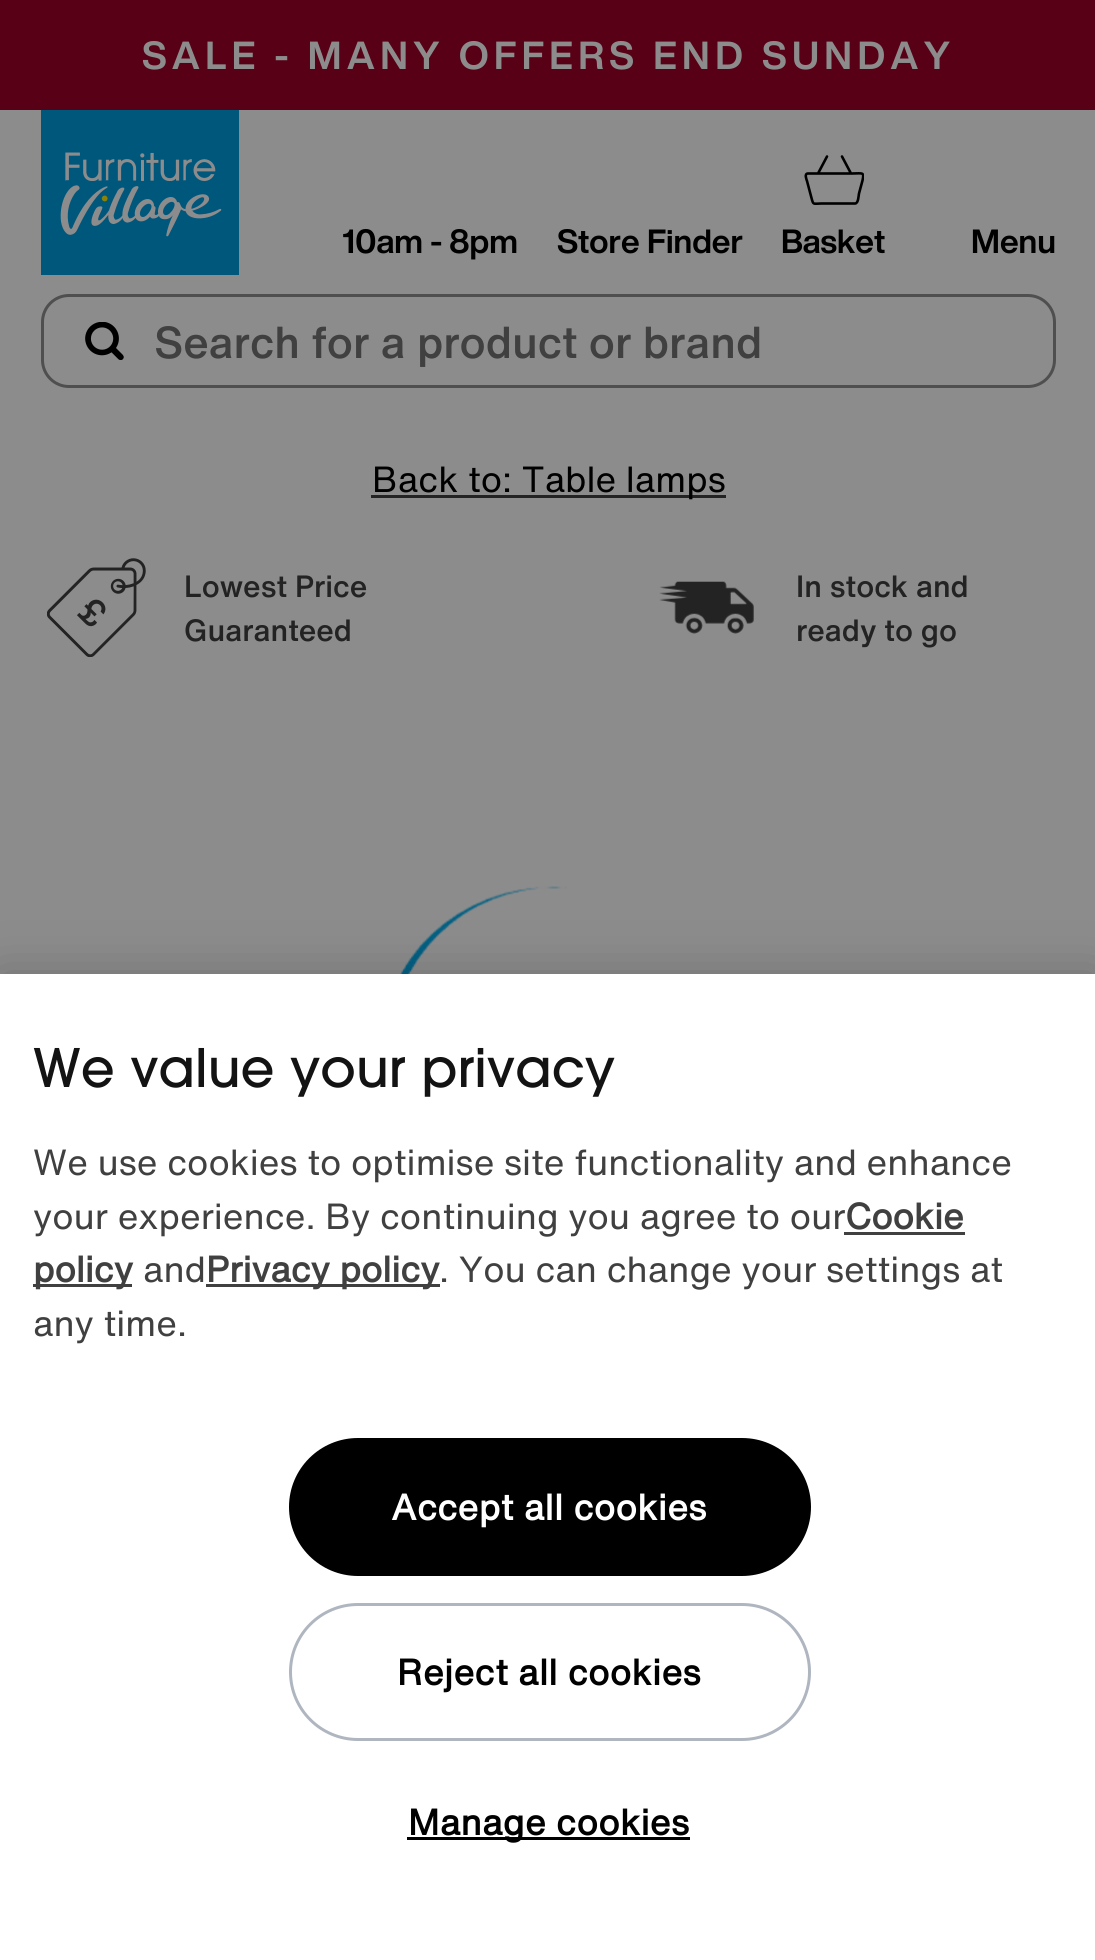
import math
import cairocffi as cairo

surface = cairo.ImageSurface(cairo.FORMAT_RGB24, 1095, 1960)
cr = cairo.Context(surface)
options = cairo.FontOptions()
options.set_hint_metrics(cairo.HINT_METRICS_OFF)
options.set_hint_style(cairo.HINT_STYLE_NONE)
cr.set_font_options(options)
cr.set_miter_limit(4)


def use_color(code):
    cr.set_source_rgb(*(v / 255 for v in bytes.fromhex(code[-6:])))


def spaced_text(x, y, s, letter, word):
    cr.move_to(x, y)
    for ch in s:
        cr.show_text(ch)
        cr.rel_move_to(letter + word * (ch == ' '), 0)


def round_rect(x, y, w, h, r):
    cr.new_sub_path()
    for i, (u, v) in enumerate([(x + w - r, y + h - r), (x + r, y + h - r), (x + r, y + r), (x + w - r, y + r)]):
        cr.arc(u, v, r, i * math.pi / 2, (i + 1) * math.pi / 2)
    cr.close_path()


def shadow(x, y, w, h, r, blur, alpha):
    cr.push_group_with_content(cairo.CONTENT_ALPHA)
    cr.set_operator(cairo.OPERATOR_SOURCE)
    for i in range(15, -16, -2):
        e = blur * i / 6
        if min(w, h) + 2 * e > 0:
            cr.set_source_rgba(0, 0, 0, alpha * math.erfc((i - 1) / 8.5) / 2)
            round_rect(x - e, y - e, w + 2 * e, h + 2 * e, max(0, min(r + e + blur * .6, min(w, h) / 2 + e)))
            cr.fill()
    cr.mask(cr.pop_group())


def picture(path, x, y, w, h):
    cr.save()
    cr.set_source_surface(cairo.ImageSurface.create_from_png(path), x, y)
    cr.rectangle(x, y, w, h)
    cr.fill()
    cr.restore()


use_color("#8c8c8c")
cr.paint()
use_color("#580016")
cr.rectangle(0, 0, 1095, 110)
cr.fill()
cr.select_font_face("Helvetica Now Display", cairo.FONT_SLANT_NORMAL, cairo.FONT_WEIGHT_BOLD)
cr.set_font_size(38.5)
use_color("#8c8c8c")
spaced_text(142, 69, "SALE - MANY OFFERS END SUNDAY", 5.5, 0)
use_color("#00577c")
cr.rectangle(41, 110, 198, 165)
cr.fill()
picture("img1.png", 60, 152, 162, 85)
cr.set_font_size(33)
use_color("#000000")
cr.move_to(342, 253)
cr.show_text("10am - 8pm")
cr.move_to(557, 253)
cr.show_text("Store Finder")
cr.save()
cr.rectangle(803, 154, 61, 55)
cr.clip()
cr.new_path()
cr.move_to(818, 173.5)
cr.line_to(827, 156.5)
cr.move_to(842, 156.5)
cr.line_to(851, 173.5)
cr.move_to(855, 203.5)
cr.line_to(821.5, 203.5)
cr.curve_to(813, 203.5, 813.5, 205.5, 811.5, 198)
cr.line_to(807, 181)
cr.curve_to(806.5, 179.5, 804, 173.5, 808, 173.5)
cr.line_to(852, 173.5)
cr.curve_to(862.5, 173.5, 864.5, 171.5, 862.5, 180.5)
cr.line_to(859, 193.5)
cr.curve_to(858.5, 195.5, 858.5, 203.5, 855, 203.5)
cr.close_path()
cr.set_line_width(2.6)
cr.set_line_cap(cairo.LINE_CAP_ROUND)
cr.stroke()
cr.restore()
cr.move_to(781, 253)
cr.show_text("Basket")
cr.move_to(971, 253)
cr.show_text("Menu")
picture("img2.png", 85, 322, 39, 38)
round_rect(42.5, 295.5, 1012, 91, 26.5)
use_color("#4f4f4f")
cr.set_line_width(3)
cr.stroke()
cr.select_font_face("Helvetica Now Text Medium")
cr.set_font_size(44)
use_color("#404040")
cr.move_to(154, 358)
cr.show_text("Search for a product or brand")
use_color("#232324")
cr.rectangle(371, 495, 355, 3)
cr.fill()
cr.select_font_face("Helvetica Now Text")
cr.set_font_size(35.75)
use_color("#000000")
cr.move_to(372, 492)
cr.show_text("Back to: Table lamps")
picture("img3.png", 47, 558, 99, 99)
cr.select_font_face("Helvetica Now Text Medium")
cr.set_font_size(30.25)
use_color("#232324")
cr.move_to(184, 597)
cr.show_text("Lowest Price")
cr.move_to(184, 641)
cr.show_text("Guaranteed")
picture("img4.png", 659, 581, 95, 53)
cr.move_to(796, 597)
cr.show_text("In stock and")
cr.move_to(796, 641)
cr.show_text("ready to go")
picture("img5.png", 400, 886, 167, 88)
use_color("#000000")
shadow(0, 974, 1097, 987, 0, 25, 0.2)
use_color("#ffffff")
cr.rectangle(0, 974, 1095, 986)
cr.fill()
cr.select_font_face("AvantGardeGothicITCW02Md")
cr.set_font_size(52.75)
use_color("#131313")
cr.move_to(33, 1087)
cr.show_text("We value your privacy")
cr.select_font_face("Helvetica Now Text")
cr.set_font_size(35.75)
use_color("#404040")
cr.move_to(33, 1175)
cr.show_text("We use cookies to optimise site functionality and enhance")
cr.move_to(33, 1229)
cr.show_text("your experience. By continuing you agree to our")
cr.select_font_face("Helvetica Now Text", cairo.FONT_SLANT_NORMAL, cairo.FONT_WEIGHT_BOLD)
cr.move_to(845, 1229)
cr.show_text("Cookie")
use_color("#404041")
cr.rectangle(844, 1232, 121, 3)
cr.fill()
cr.rectangle(33, 1284, 99, 3)
cr.fill()
use_color("#404040")
cr.move_to(33, 1282)
cr.show_text("policy")
cr.select_font_face("Helvetica Now Text")
cr.move_to(143, 1282)
cr.show_text("and")
use_color("#404041")
cr.rectangle(206, 1284, 234, 3)
cr.fill()
cr.select_font_face("Helvetica Now Text", cairo.FONT_SLANT_NORMAL, cairo.FONT_WEIGHT_BOLD)
use_color("#404040")
cr.move_to(206, 1282)
cr.show_text("Privacy policy")
cr.select_font_face("Helvetica Now Text")
cr.move_to(439, 1282)
cr.show_text(". You can change your settings at")
cr.move_to(33, 1336)
cr.show_text("any time.")
use_color("#000000")
round_rect(289, 1438, 522, 138, 69)
cr.fill()
cr.select_font_face("Helvetica Now Text", cairo.FONT_SLANT_NORMAL, cairo.FONT_WEIGHT_BOLD)
use_color("#ffffff")
spaced_text(391, 1520, "Accept all cookies", 0.4, 0)
round_rect(290.5, 1604.5, 519, 135, 67.5)
use_color("#afb6c0")
cr.stroke()
use_color("#000000")
spaced_text(397, 1685, "Reject all cookies", 0.4, 0)
cr.rectangle(407, 1837, 283, 3)
cr.fill()
spaced_text(408, 1835, "Manage cookies", 0.4, 0)
surface.write_to_png("result.png")
